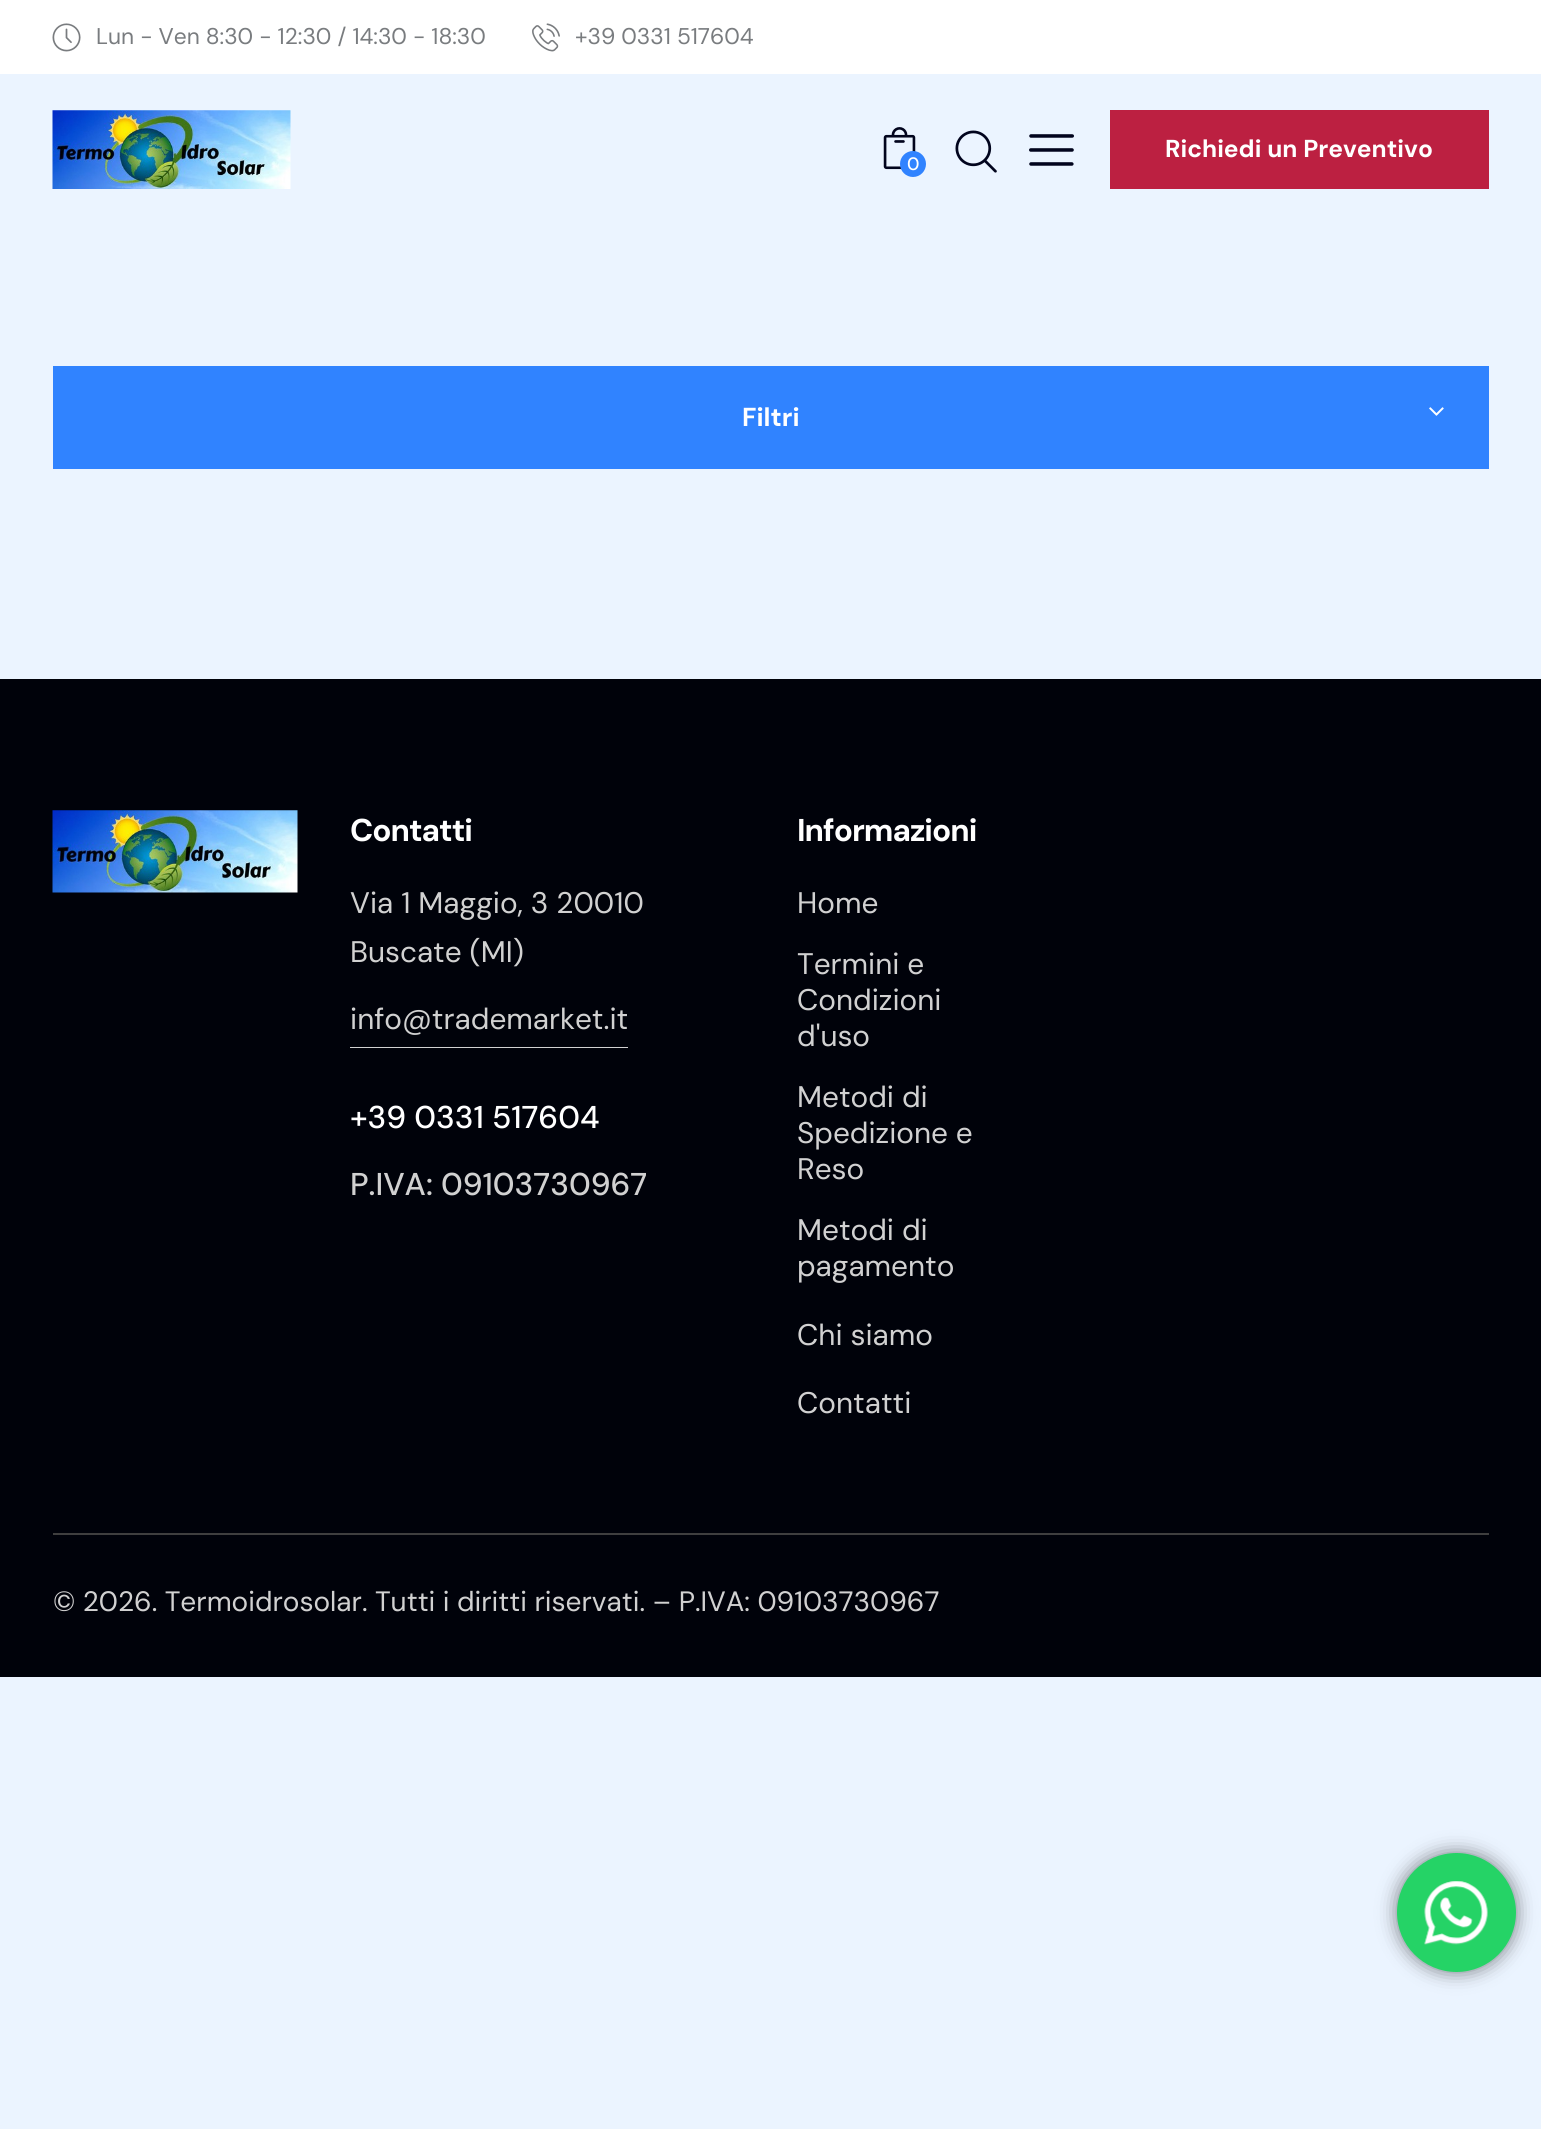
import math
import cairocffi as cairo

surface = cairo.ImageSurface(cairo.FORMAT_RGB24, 1541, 2129)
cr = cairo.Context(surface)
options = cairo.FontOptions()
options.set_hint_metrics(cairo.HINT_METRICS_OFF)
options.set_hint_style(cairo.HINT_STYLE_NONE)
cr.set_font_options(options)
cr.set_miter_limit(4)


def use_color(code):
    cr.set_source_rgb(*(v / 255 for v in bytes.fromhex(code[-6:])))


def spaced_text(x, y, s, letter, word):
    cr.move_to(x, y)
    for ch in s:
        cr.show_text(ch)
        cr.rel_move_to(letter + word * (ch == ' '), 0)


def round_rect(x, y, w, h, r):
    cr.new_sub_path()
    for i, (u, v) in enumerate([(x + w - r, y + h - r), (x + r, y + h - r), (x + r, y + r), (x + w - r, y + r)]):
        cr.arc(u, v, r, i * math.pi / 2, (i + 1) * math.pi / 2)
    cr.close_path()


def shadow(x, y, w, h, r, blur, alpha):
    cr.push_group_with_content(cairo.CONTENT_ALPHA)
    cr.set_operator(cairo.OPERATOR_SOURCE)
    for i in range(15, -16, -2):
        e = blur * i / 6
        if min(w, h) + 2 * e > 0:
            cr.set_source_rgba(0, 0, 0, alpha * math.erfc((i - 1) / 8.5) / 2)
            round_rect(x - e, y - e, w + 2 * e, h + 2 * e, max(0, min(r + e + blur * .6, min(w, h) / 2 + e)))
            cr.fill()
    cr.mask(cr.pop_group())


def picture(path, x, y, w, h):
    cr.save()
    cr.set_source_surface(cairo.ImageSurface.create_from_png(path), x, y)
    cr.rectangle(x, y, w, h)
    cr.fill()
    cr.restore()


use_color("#ebf4ff")
cr.paint()
use_color("#ffffff")
cr.rectangle(0, 0, 1541, 74)
cr.fill()
picture("img1.png", 52, 23, 29, 29)
cr.select_font_face("DM Sans")
cr.set_font_size(22.75)
use_color("#797c7f")
cr.move_to(96, 44)
cr.show_text("Lun - Ven 8:30 - 12:30 / 14:30 - 18:30")
picture("img2.png", 532, 23, 28, 29)
cr.move_to(575, 44)
cr.show_text("+39 0331 517604")
picture("img3.png", 52, 110, 239, 79)
picture("img4.png", 955, 130, 42, 43)
picture("img5.png", 1029, 134, 45, 32)
use_color("#bc2041")
cr.rectangle(1110, 110, 379, 79)
cr.fill()
cr.select_font_face("DM Sans", cairo.FONT_SLANT_NORMAL, cairo.FONT_WEIGHT_BOLD)
cr.set_font_size(24.5)
use_color("#ffffff")
cr.move_to(1165, 157)
cr.show_text("Richiedi un Preventivo")
picture("img6.png", 883, 127, 33, 43)
use_color("#3083ff")
cr.arc(913, 164, 13, 0, 2 * math.pi)
cr.fill()
cr.select_font_face("DM Sans Medium")
cr.set_font_size(18)
use_color("#ffffff")
spaced_text(907, 170, "0", 1, 0)
use_color("#3083ff")
cr.rectangle(53, 366, 1436, 103)
cr.fill()
cr.select_font_face("DM Sans", cairo.FONT_SLANT_NORMAL, cairo.FONT_WEIGHT_BOLD)
cr.set_font_size(26)
use_color("#ffffff")
cr.move_to(742, 426)
cr.show_text("Filtri")
picture("img7.png", 1429, 407, 15, 9)
use_color("#00020a")
cr.rectangle(0, 679, 1541, 998)
cr.fill()
picture("img8.png", 52, 810, 246, 83)
cr.set_font_size(31.5)
use_color("#ffffff")
spaced_text(350, 841, "Contatti", -1, 0)
cr.select_font_face("DM Sans")
cr.set_font_size(29.75)
use_color("#d1d1d1")
cr.move_to(350, 913)
cr.show_text("Via 1 Maggio, 3 20010")
cr.move_to(350, 962)
cr.show_text("Buscate (MI)")
cr.move_to(350, 1029)
cr.show_text("info@trademarket.it")
cr.rectangle(350, 1047, 278, 1)
cr.fill()
cr.select_font_face("DM Sans Medium")
cr.set_font_size(31.5)
use_color("#ffffff")
cr.move_to(350, 1128)
cr.show_text("+39 0331 517604")
use_color("#d1d1d1")
cr.move_to(350, 1195)
cr.show_text("P.IVA: 09103730967")
cr.select_font_face("DM Sans", cairo.FONT_SLANT_NORMAL, cairo.FONT_WEIGHT_BOLD)
use_color("#ffffff")
spaced_text(797, 841, "Informazioni", -1, 0)
cr.select_font_face("DM Sans")
cr.set_font_size(29.75)
use_color("#d1d1d1")
cr.move_to(797, 913)
cr.show_text("Home")
cr.move_to(797, 974)
cr.show_text("Termini e")
cr.move_to(797, 1010)
cr.show_text("Condizioni")
cr.move_to(797, 1046)
cr.show_text("d'uso")
cr.move_to(797, 1107)
cr.show_text("Metodi di")
cr.move_to(797, 1143)
cr.show_text("Spedizione e")
cr.move_to(797, 1179)
cr.show_text("Reso")
cr.move_to(797, 1240)
cr.show_text("Metodi di")
cr.move_to(797, 1276)
cr.show_text("pagamento")
cr.move_to(797, 1345)
cr.show_text("Chi siamo")
cr.move_to(797, 1413)
cr.show_text("Contatti")
use_color("#3f3f3f")
cr.rectangle(53, 1533, 1436, 2)
cr.fill()
cr.set_font_size(28)
use_color("#d1d1d1")
cr.move_to(53, 1611)
cr.show_text("© 2026. Termoidrosolar. Tutti i diritti riservati. – P.IVA: 09103730967")
use_color("#000000")
shadow(1397, 1853, 119, 119, 59.5, 9.5, 0.5)
use_color("#25d366")
cr.arc(1456.5, 1912.5, 59.5, 0, 2 * math.pi)
cr.fill()
picture("img9.png", 1424, 1881, 64, 64)
surface.write_to_png("result.png")
